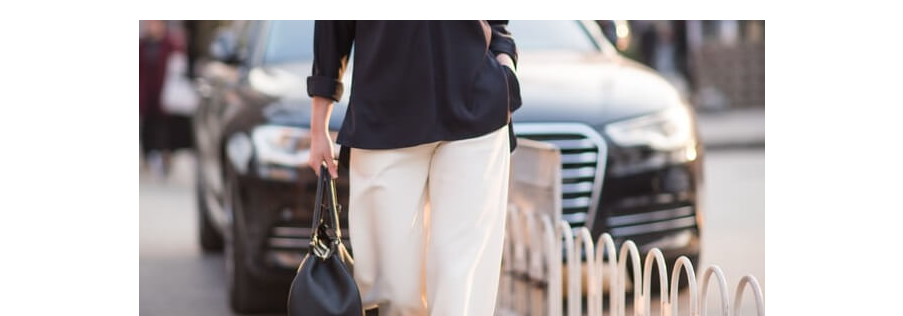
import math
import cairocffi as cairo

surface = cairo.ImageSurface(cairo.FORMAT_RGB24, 903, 316)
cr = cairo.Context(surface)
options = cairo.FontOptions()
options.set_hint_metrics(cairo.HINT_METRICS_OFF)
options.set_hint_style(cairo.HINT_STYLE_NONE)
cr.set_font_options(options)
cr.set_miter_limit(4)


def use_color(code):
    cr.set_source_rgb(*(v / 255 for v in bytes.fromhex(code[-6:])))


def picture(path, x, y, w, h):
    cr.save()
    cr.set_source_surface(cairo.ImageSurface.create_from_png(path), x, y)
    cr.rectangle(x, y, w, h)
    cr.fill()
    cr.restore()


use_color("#ffffff")
cr.paint()
picture("img1.png", 139, 20, 626, 296)
surface.write_to_png("result.png")
